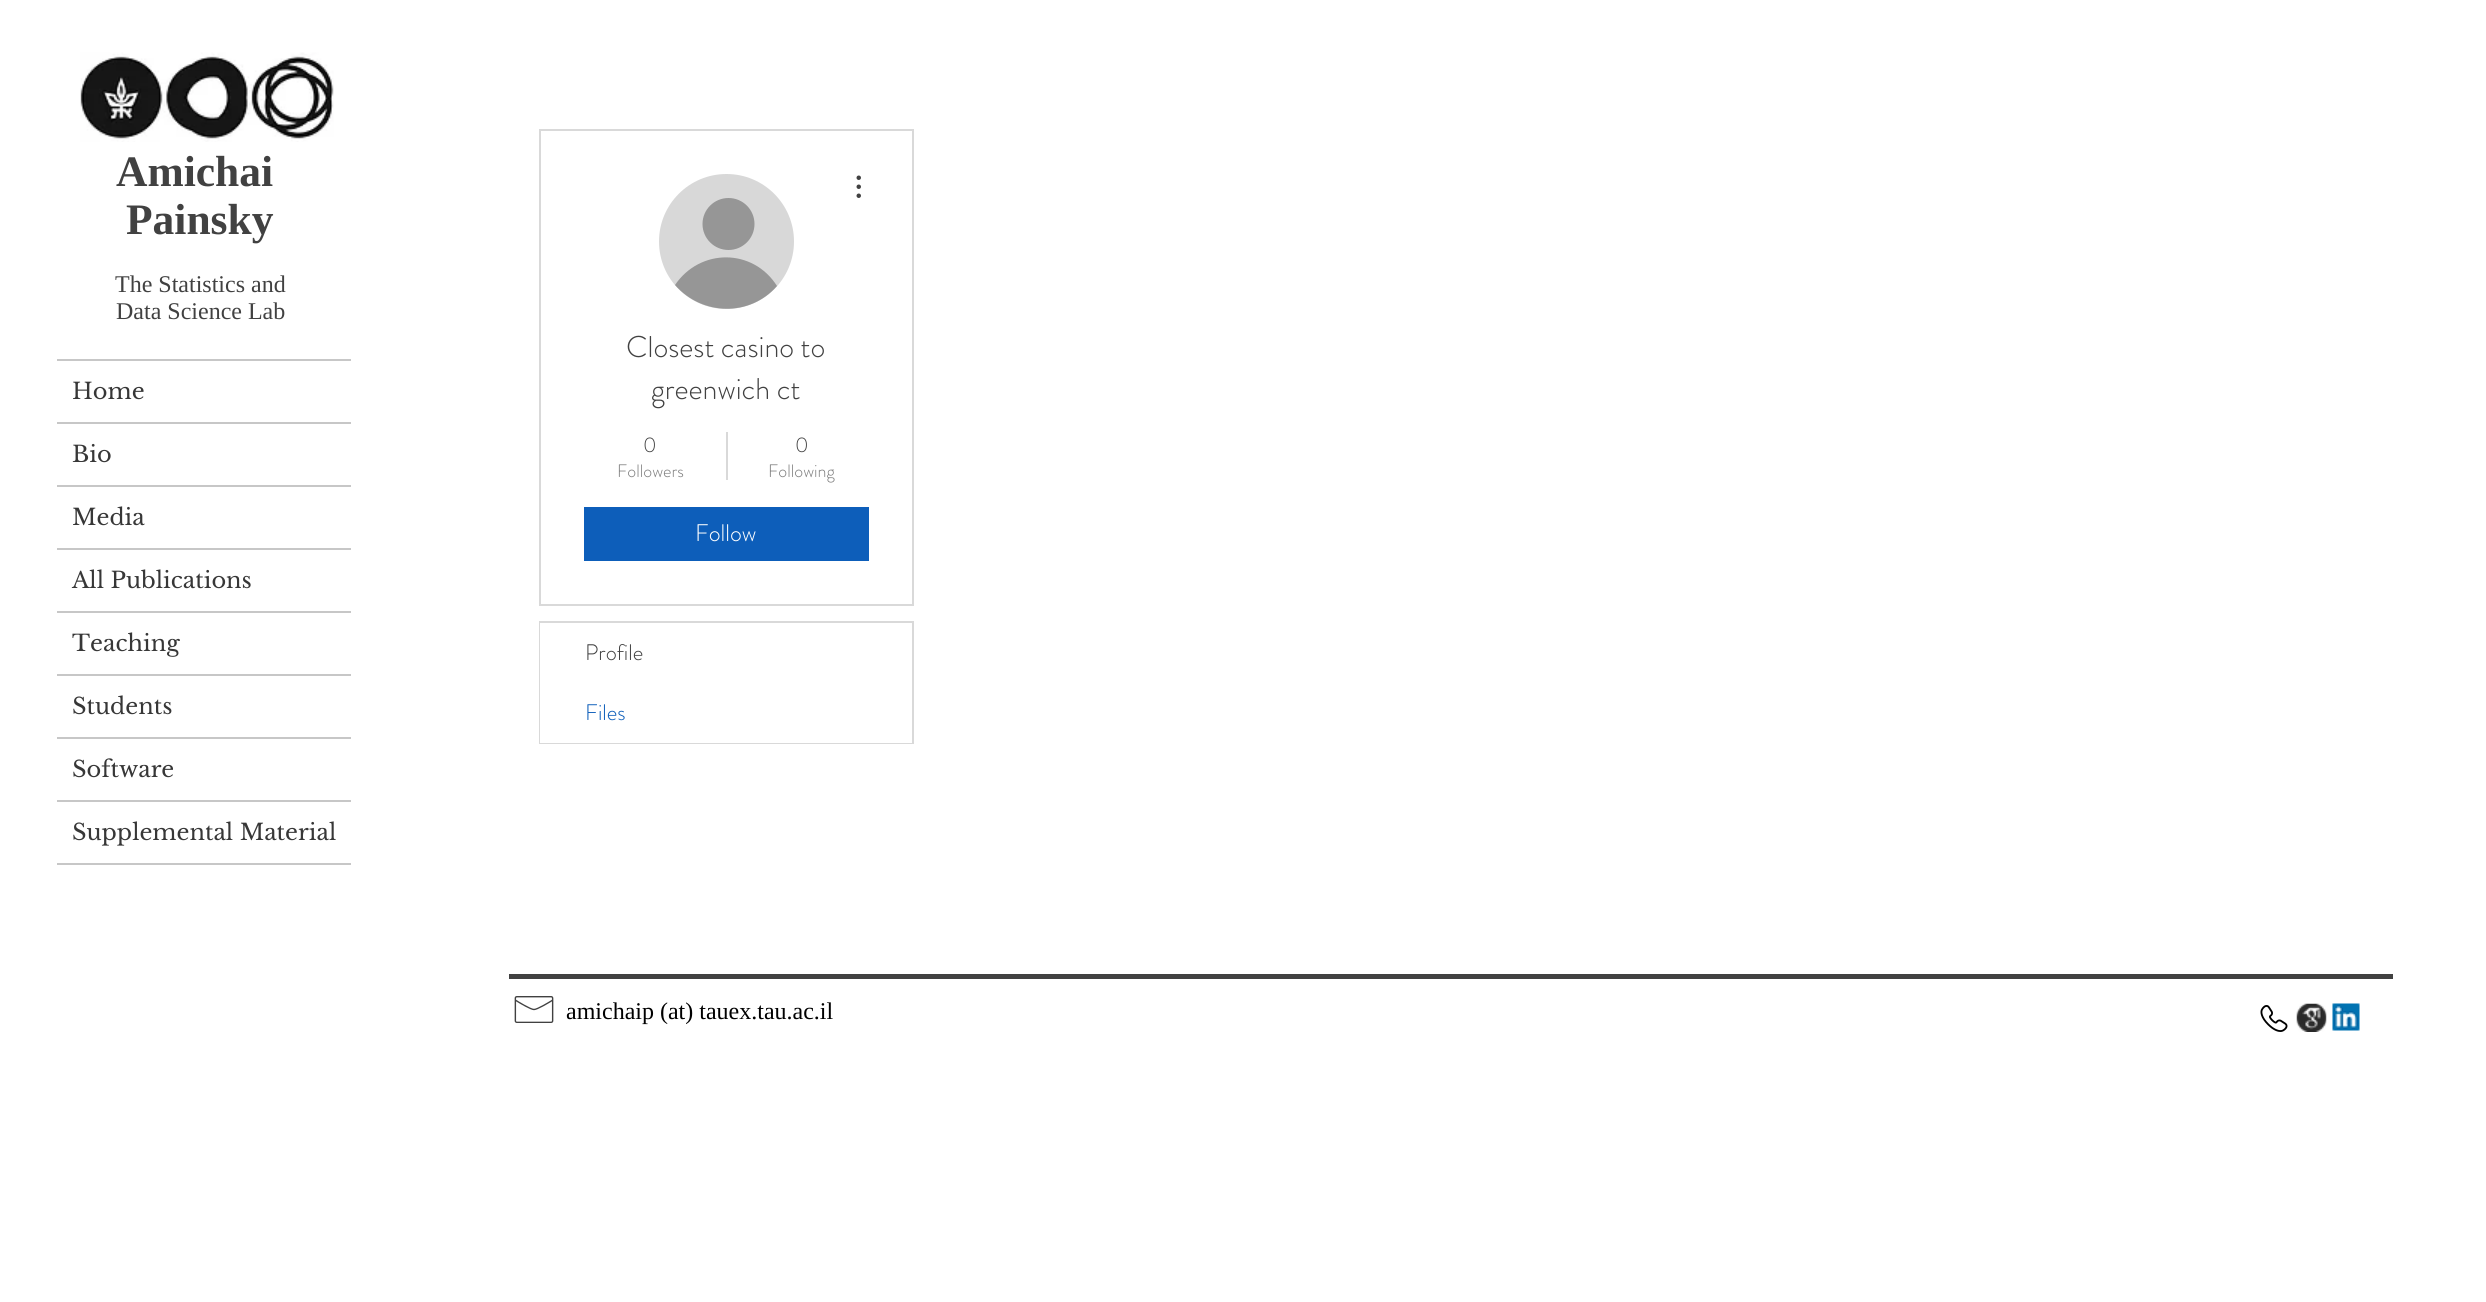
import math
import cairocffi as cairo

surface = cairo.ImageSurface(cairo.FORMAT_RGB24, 2486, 1302)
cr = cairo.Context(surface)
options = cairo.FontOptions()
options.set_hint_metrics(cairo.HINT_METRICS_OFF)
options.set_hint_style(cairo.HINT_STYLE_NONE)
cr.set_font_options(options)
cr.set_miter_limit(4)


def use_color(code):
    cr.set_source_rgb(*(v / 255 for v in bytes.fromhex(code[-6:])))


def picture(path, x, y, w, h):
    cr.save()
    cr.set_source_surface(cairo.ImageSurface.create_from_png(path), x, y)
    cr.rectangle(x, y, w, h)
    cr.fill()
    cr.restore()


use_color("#ffffff")
cr.paint()
picture("img1.png", 80, 52, 254, 90)
cr.select_font_face("Liberation Serif", cairo.FONT_SLANT_NORMAL, cairo.FONT_WEIGHT_BOLD)
cr.set_font_size(43.5)
use_color("#414141")
cr.move_to(116, 186)
cr.show_text("Amichai")
cr.move_to(126, 234)
cr.show_text("Painsky")
cr.select_font_face("Liberation Serif")
cr.set_font_size(24)
cr.move_to(115, 292)
cr.show_text("The Statistics and")
cr.move_to(116, 319)
cr.show_text("Data Science Lab")
use_color("#c7c7c7")
cr.rectangle(57, 359, 294, 2)
cr.fill()
cr.rectangle(57, 863, 294, 2)
cr.fill()
cr.rectangle(57, 422, 294, 2)
cr.fill()
cr.select_font_face("Libre Baskerville")
cr.set_font_size(22.5)
use_color("#373737")
cr.move_to(72, 399)
cr.show_text("Home")
use_color("#c7c7c7")
cr.rectangle(57, 485, 294, 2)
cr.fill()
use_color("#373737")
cr.move_to(72, 462)
cr.show_text("Bio")
use_color("#c7c7c7")
cr.rectangle(57, 548, 294, 2)
cr.fill()
use_color("#373737")
cr.move_to(72, 525)
cr.show_text("Media")
use_color("#c7c7c7")
cr.rectangle(57, 611, 294, 2)
cr.fill()
use_color("#373737")
cr.move_to(72, 588)
cr.show_text("All Publications")
use_color("#c7c7c7")
cr.rectangle(57, 674, 294, 2)
cr.fill()
use_color("#373737")
cr.move_to(72, 651)
cr.show_text("Teaching")
use_color("#c7c7c7")
cr.rectangle(57, 737, 294, 2)
cr.fill()
use_color("#373737")
cr.move_to(72, 714)
cr.show_text("Students")
use_color("#c7c7c7")
cr.rectangle(57, 800, 294, 2)
cr.fill()
use_color("#373737")
cr.move_to(72, 777)
cr.show_text("Software")
cr.move_to(72, 840)
cr.show_text("Supplemental Material")
cr.rectangle(540, 130, 373, 475)
use_color("#d9d9d9")
cr.stroke()
use_color("#d8d8d8")
cr.arc(726.5, 241.5, 67.5, 0, 2 * math.pi)
cr.fill()
use_color("#969696")
cr.arc(728.5, 224, 26, 0, 2 * math.pi)
cr.fill()
cr.new_path()
cr.move_to(777, 286)
cr.curve_to(750, 317, 702, 316, 675, 285)
cr.curve_to(700, 248, 753, 248, 777, 286)
cr.close_path()
cr.fill()
picture("img2.png", 856, 175, 5, 23)
cr.select_font_face("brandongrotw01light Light")
cr.set_font_size(30)
use_color("#414141")
cr.move_to(626, 357)
cr.show_text("Closest casino to")
cr.move_to(651, 399)
cr.show_text("greenwich ct")
cr.set_font_size(21)
cr.move_to(643, 452)
cr.show_text("0")
cr.set_font_size(18)
use_color("#7a7a7a")
cr.move_to(617, 477)
cr.show_text("Followers")
use_color("#d9d9d9")
cr.rectangle(726, 432, 2, 48)
cr.fill()
cr.set_font_size(21)
use_color("#414141")
cr.move_to(795, 452)
cr.show_text("0")
cr.set_font_size(18)
use_color("#7a7a7a")
cr.move_to(768, 477)
cr.show_text("Following")
use_color("#0d5eba")
cr.rectangle(584, 507, 285, 54)
cr.fill()
cr.set_font_size(24)
use_color("#ffffff")
cr.move_to(695, 541)
cr.show_text("Follow")
cr.rectangle(540, 622, 373, 121)
use_color("#d9d9d9")
cr.stroke()
use_color("#ffffff")
cr.rectangle(540, 623, 1, 60)
cr.fill()
cr.set_font_size(22.5)
use_color("#414141")
cr.move_to(585, 660)
cr.show_text("Profile")
use_color("#ffffff")
cr.rectangle(540, 683, 372, 60)
cr.fill()
use_color("#0d5eba")
cr.move_to(585, 720)
cr.show_text("Files")
use_color("#414141")
cr.rectangle(509, 974, 1884, 5)
cr.fill()
picture("img3.png", 514, 996, 40, 27)
cr.select_font_face("Liberation Serif")
cr.set_font_size(24)
use_color("#000000")
cr.move_to(566, 1019)
cr.show_text("amichaip (at) tauex.tau.ac.il")
picture("img4.png", 2260, 1005, 28, 27)
picture("img5.png", 2296, 1003, 31, 29)
picture("img6.png", 2332, 1003, 28, 28)
surface.write_to_png("result.png")
